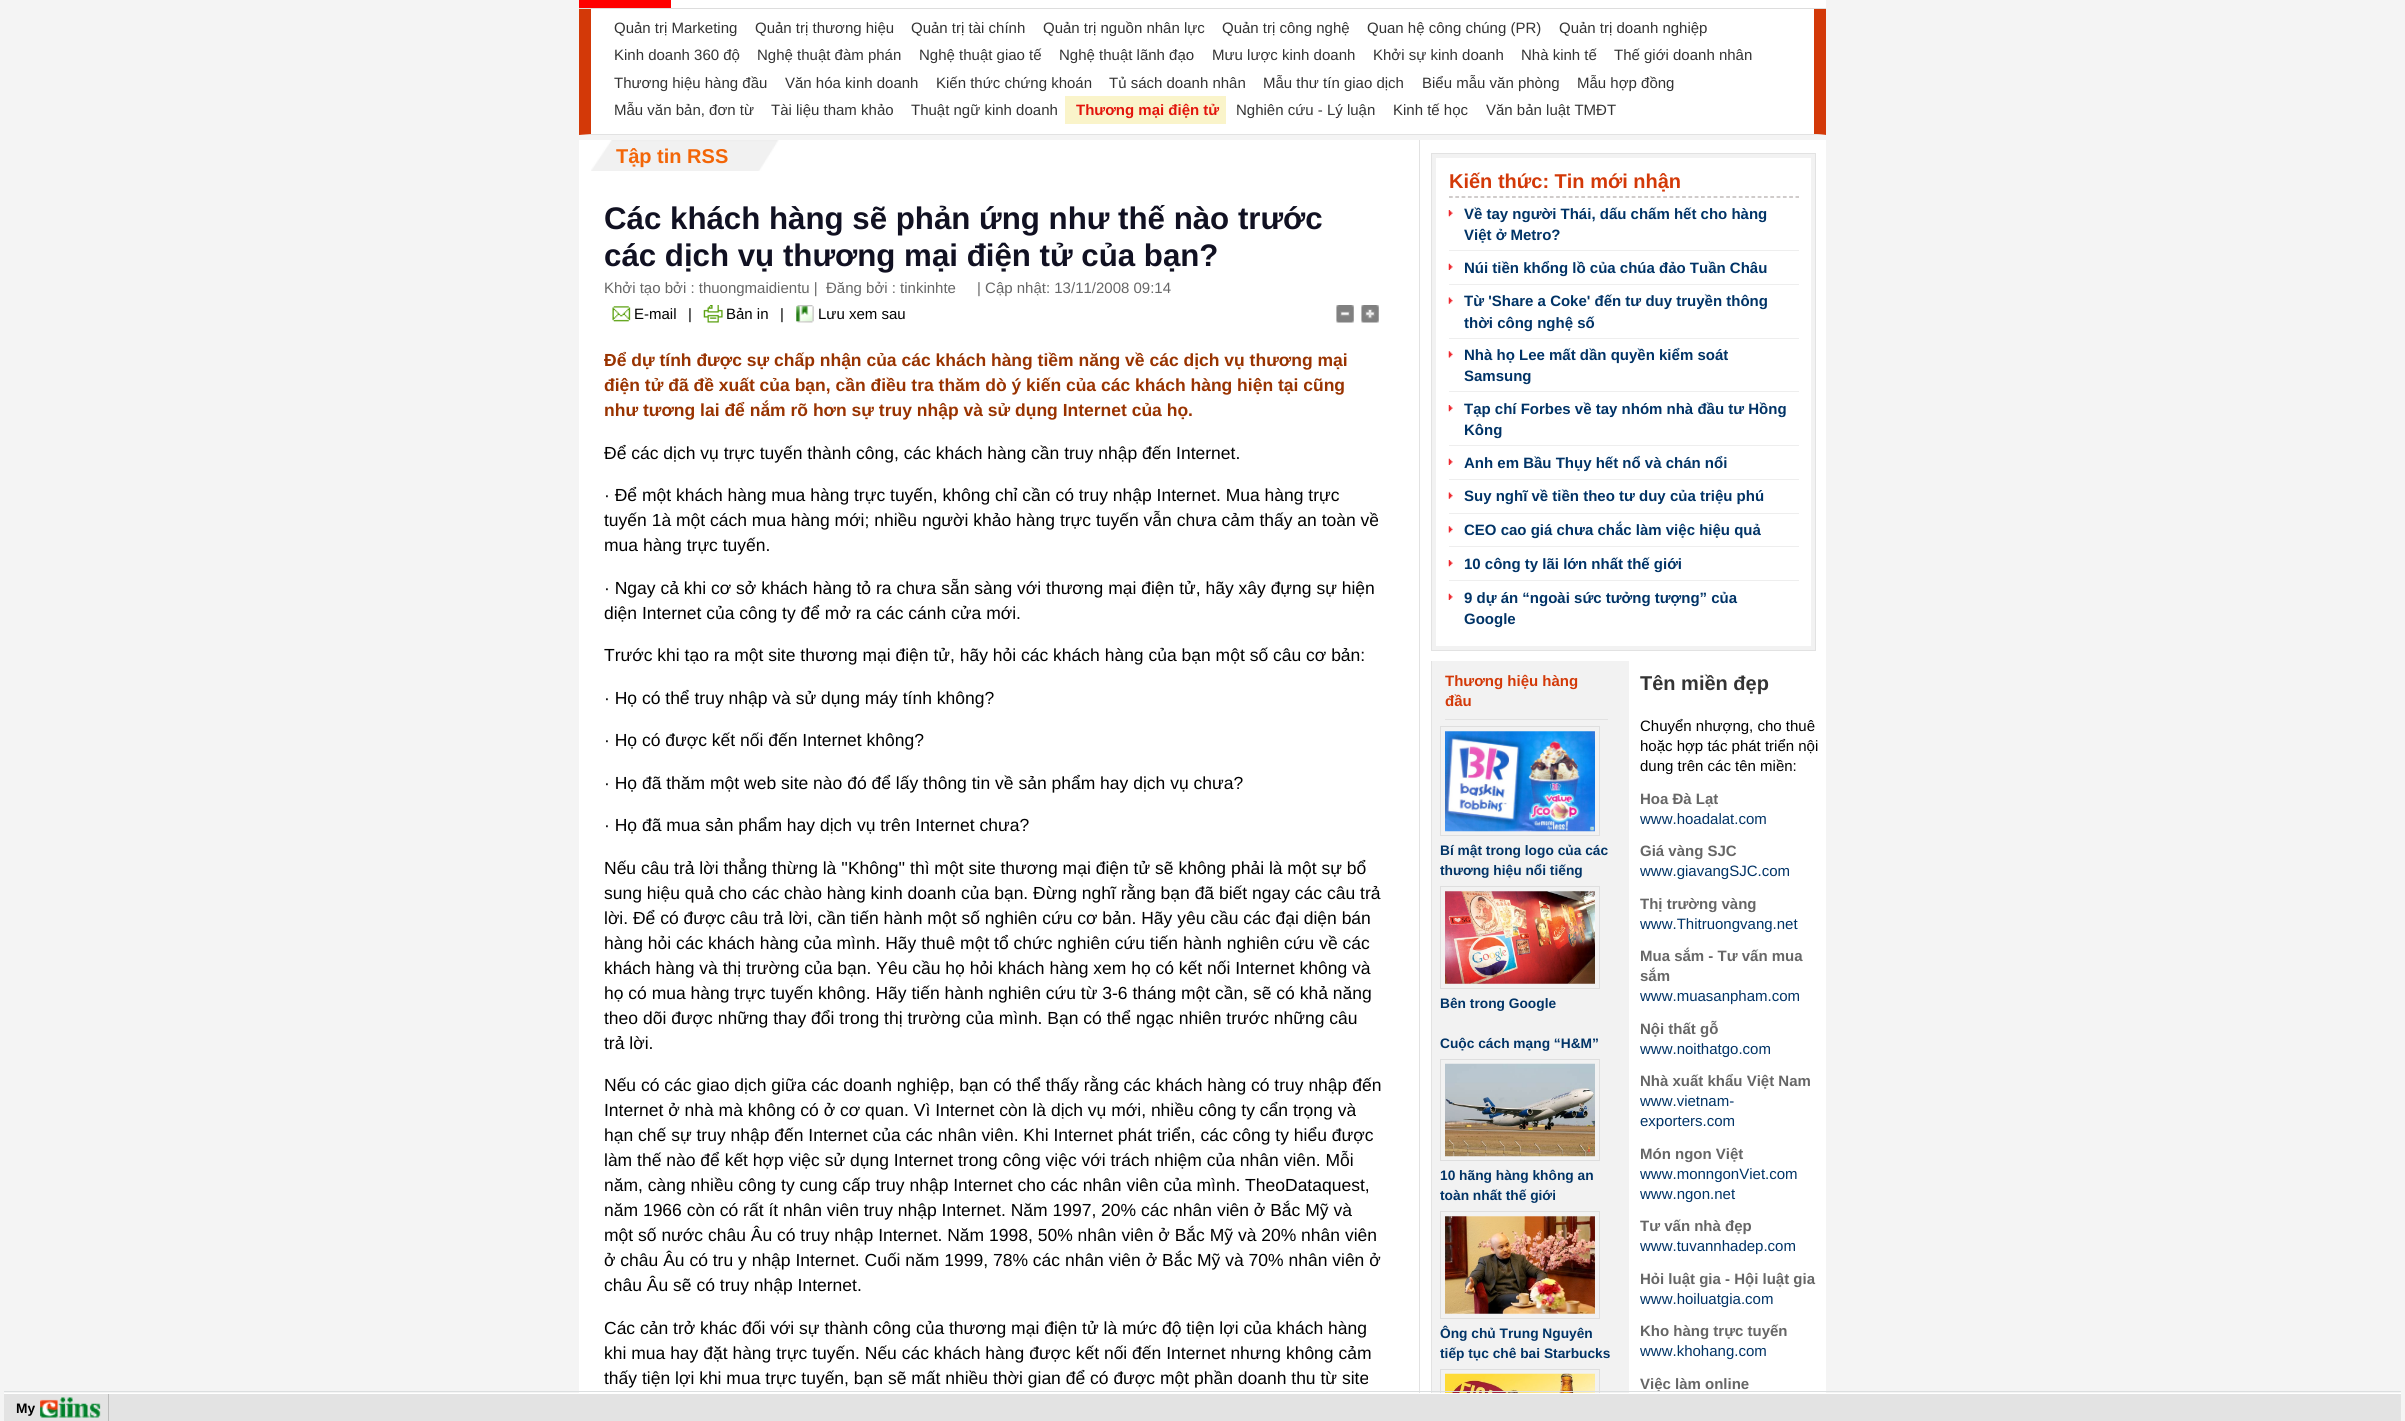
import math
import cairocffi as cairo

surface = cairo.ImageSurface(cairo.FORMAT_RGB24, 2405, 1421)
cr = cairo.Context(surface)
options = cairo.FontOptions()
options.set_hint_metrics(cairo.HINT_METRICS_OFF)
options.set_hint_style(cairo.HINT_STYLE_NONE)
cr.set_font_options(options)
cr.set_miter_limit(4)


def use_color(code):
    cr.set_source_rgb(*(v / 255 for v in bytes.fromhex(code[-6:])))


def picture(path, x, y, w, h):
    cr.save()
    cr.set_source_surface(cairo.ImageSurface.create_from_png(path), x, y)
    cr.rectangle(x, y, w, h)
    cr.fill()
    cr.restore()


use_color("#f4f4f4")
cr.paint()
use_color("#ffffff")
cr.rectangle(671, 0, 1155, 8)
cr.fill()
use_color("#dddddd")
cr.rectangle(579, 8, 1247, 1)
cr.fill()
use_color("#ff0000")
cr.rectangle(579, 0, 92, 8)
cr.fill()
use_color("#ffffff")
cr.rectangle(579, 9, 1247, 126)
cr.fill()
use_color("#d33908")
cr.new_path()
cr.move_to(1826, 9)
cr.line_to(1826, 135)
cr.line_to(1814, 134)
cr.line_to(1814, 9)
cr.close_path()
cr.fill()
use_color("#e2e2e2")
cr.new_path()
cr.move_to(1826, 135)
cr.line_to(579, 135)
cr.line_to(591, 134)
cr.line_to(1814, 134)
cr.close_path()
cr.fill()
use_color("#d33908")
cr.new_path()
cr.move_to(579, 135)
cr.line_to(579, 9)
cr.line_to(591, 9)
cr.line_to(591, 134)
cr.close_path()
cr.fill()
cr.select_font_face("Liberation Sans")
cr.set_font_size(15)
use_color("#333333")
cr.move_to(614, 33)
cr.show_text("Quản trị Marketing")
cr.move_to(755, 33)
cr.show_text("Quản trị thương hiệu")
cr.move_to(911, 33)
cr.show_text("Quản trị tài chính")
cr.move_to(1043, 33)
cr.show_text("Quản trị nguồn nhân lực")
cr.move_to(1222, 33)
cr.show_text("Quản trị công nghệ")
cr.move_to(1367, 33)
cr.show_text("Quan hệ công chúng (PR)")
cr.move_to(1559, 33)
cr.show_text("Quản trị doanh nghiệp")
cr.move_to(614, 60)
cr.show_text("Kinh doanh 360 độ")
cr.move_to(757, 60)
cr.show_text("Nghệ thuật đàm phán")
cr.move_to(919, 60)
cr.show_text("Nghệ thuật giao tế")
cr.move_to(1059, 60)
cr.show_text("Nghệ thuật lãnh đạo")
cr.move_to(1212, 60)
cr.show_text("Mưu lược kinh doanh")
cr.move_to(1373, 60)
cr.show_text("Khởi sự kinh doanh")
cr.move_to(1521, 60)
cr.show_text("Nhà kinh tế")
cr.move_to(1614, 60)
cr.show_text("Thế giới doanh nhân")
cr.move_to(614, 88)
cr.show_text("Thương hiệu hàng đầu")
cr.move_to(785, 88)
cr.show_text("Văn hóa kinh doanh")
cr.move_to(936, 88)
cr.show_text("Kiến thức chứng khoán")
cr.move_to(1109, 88)
cr.show_text("Tủ sách doanh nhân")
cr.move_to(1263, 88)
cr.show_text("Mẫu thư tín giao dịch")
cr.move_to(1422, 88)
cr.show_text("Biểu mẫu văn phòng")
cr.move_to(1577, 88)
cr.show_text("Mẫu hợp đồng")
cr.move_to(614, 115)
cr.show_text("Mẫu văn bản, đơn từ")
cr.move_to(771, 115)
cr.show_text("Tài liệu tham khảo")
cr.move_to(911, 115)
cr.show_text("Thuật ngữ kinh doanh")
use_color("#faf4ca")
cr.rectangle(1065, 96, 161, 28)
cr.fill()
cr.select_font_face("Liberation Sans", cairo.FONT_SLANT_NORMAL, cairo.FONT_WEIGHT_BOLD)
use_color("#e2150c")
cr.move_to(1076, 115)
cr.show_text("Thương mại điện tử")
cr.select_font_face("Liberation Sans")
use_color("#333333")
cr.move_to(1236, 115)
cr.show_text("Nghiên cứu - Lý luận")
cr.move_to(1393, 115)
cr.show_text("Kinh tế học")
cr.move_to(1486, 115)
cr.show_text("Văn bản luật TMĐT")
use_color("#ffffff")
cr.rectangle(579, 140, 1247, 1253)
cr.fill()
use_color("#e2e2e2")
cr.rectangle(1419, 140, 1, 1253)
cr.fill()
picture("img1.png", 591, 140, 188, 31)
cr.select_font_face("Liberation Sans", cairo.FONT_SLANT_NORMAL, cairo.FONT_WEIGHT_BOLD)
cr.set_font_size(20)
use_color("#f36608")
cr.move_to(616, 163)
cr.show_text("Tập tin RSS")
cr.set_font_size(31.25)
use_color("#111122")
cr.move_to(604, 229)
cr.show_text("Các khách hàng sẽ phản ứng như thế nào trước")
cr.move_to(604, 266)
cr.show_text("các dịch vụ thương mại điện tử của bạn?")
cr.select_font_face("Liberation Sans")
cr.set_font_size(15)
use_color("#666666")
cr.move_to(604, 293)
cr.show_text("Khởi tạo bởi : thuongmaidientu |  Đăng bởi : tinkinhte")
cr.move_to(977, 293)
cr.show_text("| Cập nhật: 13/11/2008 09:14")
picture("img2.png", 612, 306, 19, 16)
use_color("#000000")
cr.move_to(634, 319)
cr.show_text("E-mail")
cr.move_to(688, 319)
cr.show_text("|")
picture("img3.png", 703, 305, 20, 18)
cr.move_to(726, 319)
cr.show_text("Bản in")
cr.move_to(780, 319)
cr.show_text("|")
picture("img4.png", 796, 305, 18, 18)
cr.move_to(818, 319)
cr.show_text("Lưu xem sau")
picture("img5.png", 1336, 305, 18, 18)
picture("img6.png", 1361, 305, 18, 18)
cr.select_font_face("Liberation Sans", cairo.FONT_SLANT_NORMAL, cairo.FONT_WEIGHT_BOLD)
cr.set_font_size(17.5)
use_color("#993300")
cr.move_to(604, 366)
cr.show_text("Để dự tính được sự chấp nhận của các khách hàng tiềm năng về các dịch vụ thương mại")
cr.move_to(604, 391)
cr.show_text("điện tử đã đề xuất của bạn, cần điều tra thăm dò ý kiến của các khách hàng hiện tại cũng")
cr.move_to(604, 416)
cr.show_text("như tương lai để nắm rõ hơn sự truy nhập và sử dụng Internet của họ.")
cr.select_font_face("Liberation Sans")
use_color("#000000")
cr.move_to(604, 459)
cr.show_text("Để các dịch vụ trực tuyến thành công, các khách hàng cần truy nhập đến Internet.")
cr.move_to(604, 501)
cr.show_text("· Để một khách hàng mua hàng trực tuyến, không chỉ cần có truy nhập Internet. Mua hàng trực")
cr.move_to(604, 526)
cr.show_text("tuyến 1à một cách mua hàng mới; nhiều người khảo hàng trực tuyến vẫn chưa cảm thấy an toàn về")
cr.move_to(604, 551)
cr.show_text("mua hàng trực tuyến.")
cr.move_to(604, 594)
cr.show_text("· Ngay cả khi cơ sở khách hàng tỏ ra chưa sẵn sàng với thương mại điện tử, hãy xây đựng sự hiện")
cr.move_to(604, 619)
cr.show_text("diện Internet của công ty để mở ra các cánh cửa mới.")
cr.move_to(604, 661)
cr.show_text("Trước khi tạo ra một site thương mại điện tử, hãy hỏi các khách hàng của bạn một số câu cơ bản:")
cr.move_to(604, 704)
cr.show_text("· Họ có thể truy nhập và sử dụng máy tính không?")
cr.move_to(604, 746)
cr.show_text("· Họ có được kết nối đến Internet không?")
cr.move_to(604, 789)
cr.show_text("· Họ đã thăm một web site nào đó để lấy thông tin về sản phẩm hay dịch vụ chưa?")
cr.move_to(604, 831)
cr.show_text("· Họ đã mua sản phẩm hay dịch vụ trên Internet chưa?")
cr.move_to(604, 874)
cr.show_text("Nếu câu trả lời thẳng thừng là ''Không'' thì một site thương mại điện tử sẽ không phải là một sự bổ")
cr.move_to(604, 899)
cr.show_text("sung hiệu quả cho các chào hàng kinh doanh của bạn. Đừng nghĩ rằng bạn đã biết ngay các câu trả")
cr.move_to(604, 924)
cr.show_text("lời. Để có được câu trả lời, cần tiến hành một số nghiên cứu cơ bản. Hãy yêu cầu các đại diện bán")
cr.move_to(604, 949)
cr.show_text("hàng hỏi các khách hàng của mình. Hãy thuê một tổ chức nghiên cứu tiến hành nghiên cứu về các")
cr.move_to(604, 974)
cr.show_text("khách hàng và thị trường của bạn. Yêu cầu họ hỏi khách hàng xem họ có kết nối Internet không và")
cr.move_to(604, 999)
cr.show_text("họ có mua hàng trực tuyến không. Hãy tiến hành nghiên cứu từ 3-6 tháng một cần, sẽ có khả năng")
cr.move_to(604, 1024)
cr.show_text("theo dõi được những thay đổi trong thị trường của mình. Bạn có thể ngạc nhiên trước những câu")
cr.move_to(604, 1049)
cr.show_text("trả lời.")
cr.move_to(604, 1091)
cr.show_text("Nếu có các giao dịch giữa các doanh nghiệp, bạn có thể thấy rằng các khách hàng có truy nhập đến")
cr.move_to(604, 1116)
cr.show_text("Internet ở nhà mà không có ở cơ quan. Vì Internet còn là dịch vụ mới, nhiều công ty cẩn trọng và")
cr.move_to(604, 1141)
cr.show_text("hạn chế sự truy nhập đến Internet của các nhân viên. Khi Internet phát triển, các công ty hiểu được")
cr.move_to(604, 1166)
cr.show_text("làm thế nào để kết hợp việc sử dụng Internet trong công việc với trách nhiệm của nhân viên. Mỗi")
cr.move_to(604, 1191)
cr.show_text("năm, càng nhiều công ty cung cấp truy nhập Internet cho các nhân viên của mình. TheoDataquest,")
cr.move_to(604, 1216)
cr.show_text("năm 1966 còn có rất ít nhân viên truy nhập Internet. Năm 1997, 20% các nhân viên ở Bắc Mỹ và")
cr.move_to(604, 1241)
cr.show_text("một số nước châu Âu có truy nhập Internet. Năm 1998, 50% nhân viên ở Bắc Mỹ và 20% nhân viên")
cr.move_to(604, 1266)
cr.show_text("ở châu Âu có tru y nhập Internet. Cuối năm 1999, 78% các nhân viên ở Bắc Mỹ và 70% nhân viên ở")
cr.move_to(604, 1291)
cr.show_text("châu Âu sẽ có truy nhập Internet.")
cr.move_to(604, 1334)
cr.show_text("Các cản trở khác đối với sự thành công của thương mại điện tử là mức độ tiện lợi của khách hàng")
cr.move_to(604, 1359)
cr.show_text("khi mua hay đặt hàng trực tuyến. Nếu các khách hàng được kết nối đến Internet nhưng không cảm")
cr.move_to(604, 1384)
cr.show_text("thấy tiện lợi khi mua trực tuyến, bạn sẽ mất nhiều thời gian để có được một phần doanh thu từ site")
use_color("#f2f2f2")
cr.rectangle(1431.5, 153.5, 384, 497)
cr.fill_preserve()
use_color("#e2e2e2")
cr.set_line_width(1)
cr.stroke()
use_color("#ffffff")
cr.rectangle(1436, 158, 375, 488)
cr.fill()
cr.new_path()
cr.move_to(1449, 197)
cr.line_to(1799, 197)
use_color("#b1aba9")
cr.set_line_width(1.2)
cr.set_dash([3.75, 2.55])
cr.stroke()
cr.select_font_face("Liberation Sans", cairo.FONT_SLANT_NORMAL, cairo.FONT_WEIGHT_BOLD)
cr.set_font_size(20)
use_color("#d33908")
cr.move_to(1449, 188)
cr.show_text("Kiến thức: Tin mới nhận")
picture("img7.png", 1448, 210, 5, 7)
use_color("#eeeeee")
cr.rectangle(1449, 250, 350, 1)
cr.fill()
cr.set_font_size(15)
use_color("#003366")
cr.move_to(1464, 219)
cr.show_text("Về tay người Thái, dấu chấm hết cho hàng")
cr.move_to(1464, 240)
cr.show_text("Việt ở Metro?")
picture("img8.png", 1448, 263, 5, 7)
use_color("#eeeeee")
cr.rectangle(1449, 284, 350, 1)
cr.fill()
use_color("#003366")
cr.move_to(1464, 273)
cr.show_text("Núi tiền khổng lồ của chúa đảo Tuần Châu")
picture("img9.png", 1448, 297, 5, 7)
use_color("#eeeeee")
cr.rectangle(1449, 338, 350, 1)
cr.fill()
use_color("#003366")
cr.move_to(1464, 306)
cr.show_text("Từ 'Share a Coke' đến tư duy truyền thông")
cr.move_to(1464, 328)
cr.show_text("thời công nghệ số")
picture("img10.png", 1448, 351, 5, 7)
use_color("#eeeeee")
cr.rectangle(1449, 391, 350, 1)
cr.fill()
use_color("#003366")
cr.move_to(1464, 360)
cr.show_text("Nhà họ Lee mất dần quyền kiểm soát")
cr.move_to(1464, 381)
cr.show_text("Samsung")
picture("img7.png", 1448, 405, 5, 7)
use_color("#eeeeee")
cr.rectangle(1449, 445, 350, 1)
cr.fill()
use_color("#003366")
cr.move_to(1464, 414)
cr.show_text("Tạp chí Forbes về tay nhóm nhà đầu tư Hồng")
cr.move_to(1464, 435)
cr.show_text("Kông")
picture("img8.png", 1448, 458, 5, 7)
use_color("#eeeeee")
cr.rectangle(1449, 479, 350, 1)
cr.fill()
use_color("#003366")
cr.move_to(1464, 468)
cr.show_text("Anh em Bầu Thụy hết nổ và chán nổi")
picture("img9.png", 1448, 492, 5, 7)
use_color("#eeeeee")
cr.rectangle(1449, 513, 350, 1)
cr.fill()
use_color("#003366")
cr.move_to(1464, 501)
cr.show_text("Suy nghĩ về tiền theo tư duy của triệu phú")
picture("img10.png", 1448, 526, 5, 7)
use_color("#eeeeee")
cr.rectangle(1449, 546, 350, 1)
cr.fill()
use_color("#003366")
cr.move_to(1464, 535)
cr.show_text("CEO cao giá chưa chắc làm việc hiệu quả")
picture("img7.png", 1448, 560, 5, 7)
use_color("#eeeeee")
cr.rectangle(1449, 580, 350, 1)
cr.fill()
use_color("#003366")
cr.move_to(1464, 569)
cr.show_text("10 công ty lãi lớn nhất thế giới")
picture("img8.png", 1448, 593, 5, 7)
cr.move_to(1464, 603)
cr.show_text("9 dự án “ngoài sức tưởng tượng” của")
cr.move_to(1464, 624)
cr.show_text("Google")
use_color("#f2f2f2")
cr.rectangle(1432, 661, 197, 732)
cr.fill()
use_color("#e2e2e2")
cr.rectangle(1431, 661, 1, 732)
cr.fill()
cr.rectangle(1445, 719, 163, 1)
cr.fill()
use_color("#d33908")
cr.move_to(1445, 686)
cr.show_text("Thương hiệu hàng")
cr.move_to(1445, 706)
cr.show_text("đầu")
cr.rectangle(1440.5, 726.5, 159, 109)
use_color("#dedede")
cr.set_line_width(1)
cr.set_dash([])
cr.stroke()
picture("img11.png", 1445, 731, 150, 101)
cr.set_font_size(13.75)
use_color("#003366")
cr.move_to(1440, 855)
cr.show_text("Bí mật trong logo của các")
cr.move_to(1440, 875)
cr.show_text("thương hiệu nổi tiếng")
cr.rectangle(1440.5, 886.5, 159, 102)
use_color("#dedede")
cr.stroke()
picture("img12.png", 1445, 891, 150, 93)
use_color("#003366")
cr.move_to(1440, 1008)
cr.show_text("Bên trong Google")
cr.move_to(1440, 1048)
cr.show_text("Cuộc cách mạng “H&M”")
cr.rectangle(1440.5, 1059.5, 159, 101)
use_color("#dedede")
cr.stroke()
picture("img13.png", 1445, 1063, 150, 94)
use_color("#003366")
cr.move_to(1440, 1180)
cr.show_text("10 hãng hàng không an")
cr.move_to(1440, 1200)
cr.show_text("toàn nhất thế giới")
cr.rectangle(1440.5, 1211.5, 159, 107)
use_color("#dedede")
cr.stroke()
picture("img14.png", 1445, 1216, 150, 98)
use_color("#003366")
cr.move_to(1440, 1338)
cr.show_text("Ông chủ Trung Nguyên")
cr.move_to(1440, 1358)
cr.show_text("tiếp tục chê bai Starbucks")
cr.rectangle(1440.5, 1369.5, 159, 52)
use_color("#dedede")
cr.stroke()
picture("img15.png", 1445, 1373, 150, 20)
cr.set_font_size(20)
use_color("#333333")
cr.move_to(1640, 690)
cr.show_text("Tên miền đẹp")
cr.select_font_face("Liberation Sans")
cr.set_font_size(15)
use_color("#000000")
cr.move_to(1640, 731)
cr.show_text("Chuyển nhượng, cho thuê")
cr.move_to(1640, 751)
cr.show_text("hoặc hợp tác phát triển nội")
cr.move_to(1640, 771)
cr.show_text("dung trên các tên miền:")
cr.select_font_face("Liberation Sans", cairo.FONT_SLANT_NORMAL, cairo.FONT_WEIGHT_BOLD)
use_color("#666666")
cr.move_to(1640, 804)
cr.show_text("Hoa Đà Lạt")
cr.select_font_face("Liberation Sans")
use_color("#003366")
cr.move_to(1640, 824)
cr.show_text("www.hoadalat.com")
cr.select_font_face("Liberation Sans", cairo.FONT_SLANT_NORMAL, cairo.FONT_WEIGHT_BOLD)
use_color("#666666")
cr.move_to(1640, 856)
cr.show_text("Giá vàng SJC")
cr.select_font_face("Liberation Sans")
use_color("#003366")
cr.move_to(1640, 876)
cr.show_text("www.giavangSJC.com")
cr.select_font_face("Liberation Sans", cairo.FONT_SLANT_NORMAL, cairo.FONT_WEIGHT_BOLD)
use_color("#666666")
cr.move_to(1640, 909)
cr.show_text("Thị trường vàng")
cr.select_font_face("Liberation Sans")
use_color("#003366")
cr.move_to(1640, 929)
cr.show_text("www.Thitruongvang.net")
cr.select_font_face("Liberation Sans", cairo.FONT_SLANT_NORMAL, cairo.FONT_WEIGHT_BOLD)
use_color("#666666")
cr.move_to(1640, 961)
cr.show_text("Mua sắm - Tư vấn mua")
cr.move_to(1640, 981)
cr.show_text("sắm")
cr.select_font_face("Liberation Sans")
use_color("#003366")
cr.move_to(1640, 1001)
cr.show_text("www.muasanpham.com")
cr.select_font_face("Liberation Sans", cairo.FONT_SLANT_NORMAL, cairo.FONT_WEIGHT_BOLD)
use_color("#666666")
cr.move_to(1640, 1034)
cr.show_text("Nội thất gỗ")
cr.select_font_face("Liberation Sans")
use_color("#003366")
cr.move_to(1640, 1054)
cr.show_text("www.noithatgo.com")
cr.select_font_face("Liberation Sans", cairo.FONT_SLANT_NORMAL, cairo.FONT_WEIGHT_BOLD)
use_color("#666666")
cr.move_to(1640, 1086)
cr.show_text("Nhà xuất khẩu Việt Nam")
cr.select_font_face("Liberation Sans")
use_color("#003366")
cr.move_to(1640, 1106)
cr.show_text("www.vietnam-")
cr.move_to(1640, 1126)
cr.show_text("exporters.com")
cr.select_font_face("Liberation Sans", cairo.FONT_SLANT_NORMAL, cairo.FONT_WEIGHT_BOLD)
use_color("#666666")
cr.move_to(1640, 1159)
cr.show_text("Món ngon Việt")
cr.select_font_face("Liberation Sans")
use_color("#003366")
cr.move_to(1640, 1179)
cr.show_text("www.monngonViet.com")
cr.move_to(1640, 1199)
cr.show_text("www.ngon.net")
cr.select_font_face("Liberation Sans", cairo.FONT_SLANT_NORMAL, cairo.FONT_WEIGHT_BOLD)
use_color("#666666")
cr.move_to(1640, 1231)
cr.show_text("Tư vấn nhà đẹp")
cr.select_font_face("Liberation Sans")
use_color("#003366")
cr.move_to(1640, 1251)
cr.show_text("www.tuvannhadep.com")
cr.select_font_face("Liberation Sans", cairo.FONT_SLANT_NORMAL, cairo.FONT_WEIGHT_BOLD)
use_color("#666666")
cr.move_to(1640, 1284)
cr.show_text("Hỏi luật gia - Hội luật gia")
cr.select_font_face("Liberation Sans")
use_color("#003366")
cr.move_to(1640, 1304)
cr.show_text("www.hoiluatgia.com")
cr.select_font_face("Liberation Sans", cairo.FONT_SLANT_NORMAL, cairo.FONT_WEIGHT_BOLD)
use_color("#666666")
cr.move_to(1640, 1336)
cr.show_text("Kho hàng trực tuyến")
cr.select_font_face("Liberation Sans")
use_color("#003366")
cr.move_to(1640, 1356)
cr.show_text("www.khohang.com")
cr.select_font_face("Liberation Sans", cairo.FONT_SLANT_NORMAL, cairo.FONT_WEIGHT_BOLD)
use_color("#666666")
cr.move_to(1640, 1389)
cr.show_text("Việc làm online")
use_color("#dbdedf")
cr.rectangle(4, 1391, 2397, 1)
cr.fill()
use_color("#e3e3e3")
cr.rectangle(4, 1394, 2397, 27)
cr.fill()
use_color("#ffffff")
cr.rectangle(4, 1393, 2397, 1)
cr.fill()
picture("img16.png", 40, 1397, 61, 21)
use_color("#bbbbbb")
cr.rectangle(108, 1394, 1, 27)
cr.fill()
cr.set_font_size(13.75)
use_color("#000000")
cr.move_to(16, 1413)
cr.show_text("My")
surface.write_to_png("result.png")
